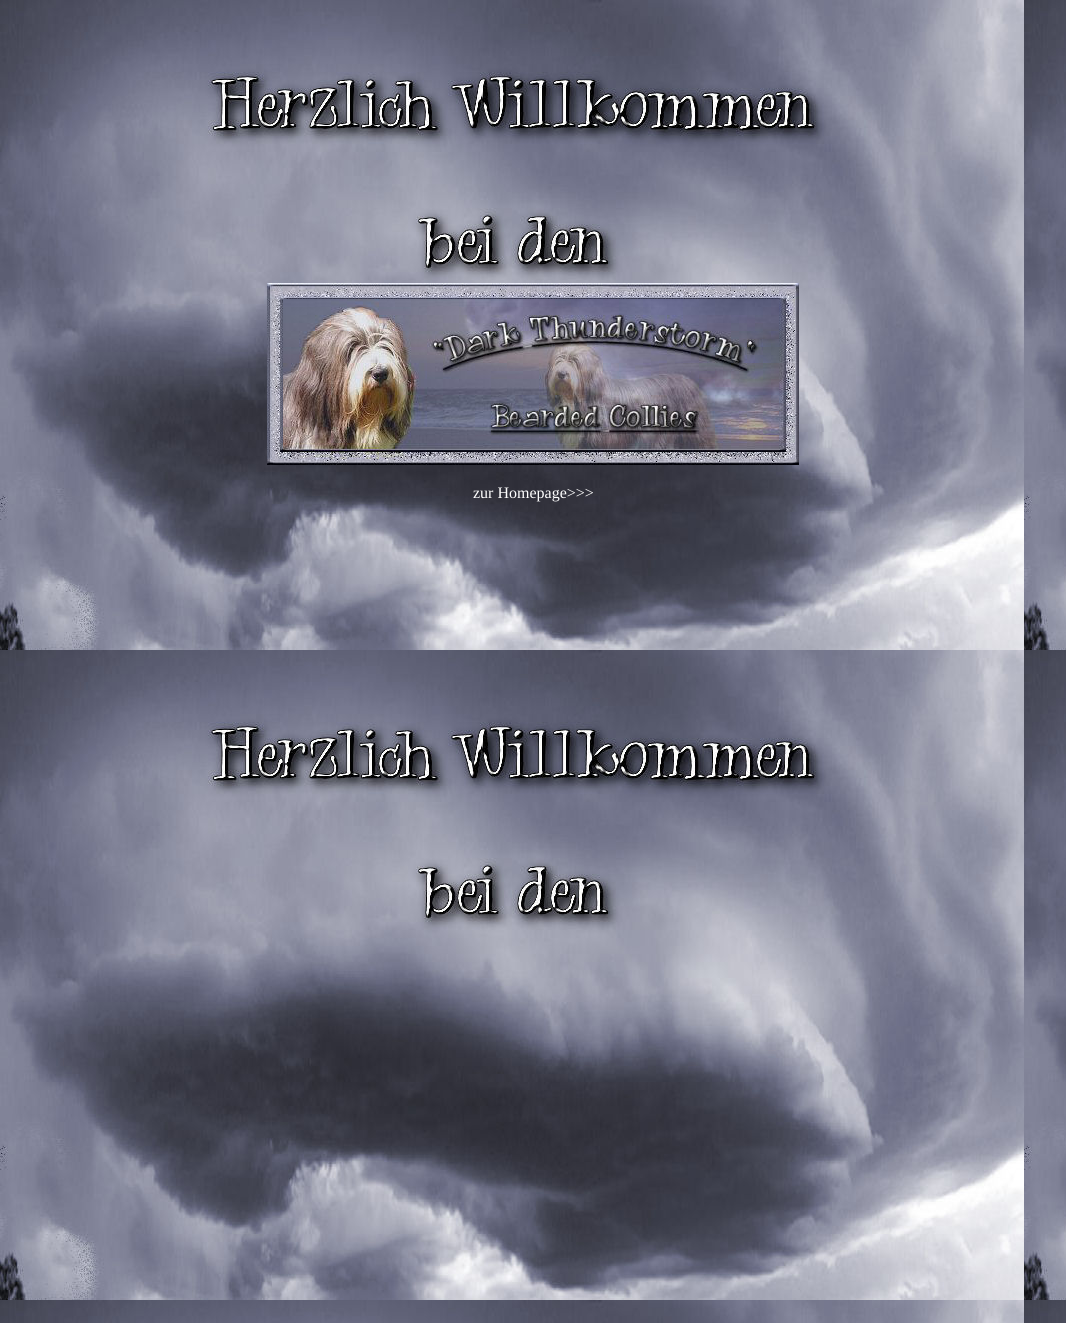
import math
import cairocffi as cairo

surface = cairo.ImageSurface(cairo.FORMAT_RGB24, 1066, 1323)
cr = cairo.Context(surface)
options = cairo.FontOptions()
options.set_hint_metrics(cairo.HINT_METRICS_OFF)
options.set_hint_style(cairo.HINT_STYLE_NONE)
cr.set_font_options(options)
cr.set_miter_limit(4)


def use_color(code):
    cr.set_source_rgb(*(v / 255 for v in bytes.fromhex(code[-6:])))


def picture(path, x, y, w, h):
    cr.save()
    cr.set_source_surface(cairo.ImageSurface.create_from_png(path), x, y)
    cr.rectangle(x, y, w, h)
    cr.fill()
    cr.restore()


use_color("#ffffff")
cr.paint()
picture("img1.png", 0, 0, 1066, 1323)
picture("img2.png", 267, 283, 532, 182)
cr.select_font_face("Liberation Serif")
cr.set_font_size(16)
use_color("#ffffff")
cr.move_to(473, 498)
cr.show_text("zur Homepage>>>")
surface.write_to_png("result.png")
